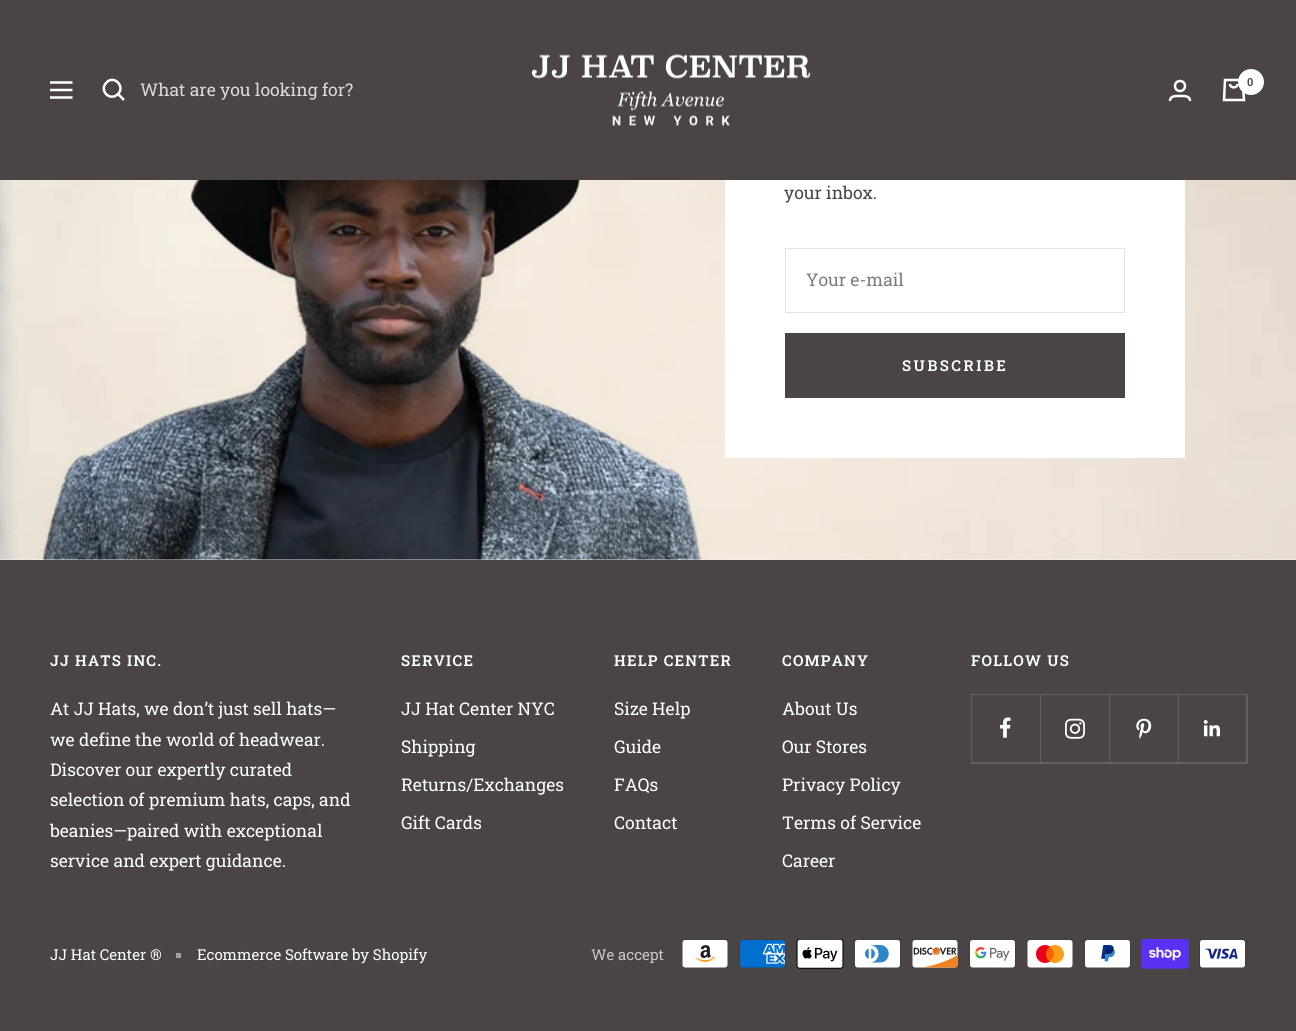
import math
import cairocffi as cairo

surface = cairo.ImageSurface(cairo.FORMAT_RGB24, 1296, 1031)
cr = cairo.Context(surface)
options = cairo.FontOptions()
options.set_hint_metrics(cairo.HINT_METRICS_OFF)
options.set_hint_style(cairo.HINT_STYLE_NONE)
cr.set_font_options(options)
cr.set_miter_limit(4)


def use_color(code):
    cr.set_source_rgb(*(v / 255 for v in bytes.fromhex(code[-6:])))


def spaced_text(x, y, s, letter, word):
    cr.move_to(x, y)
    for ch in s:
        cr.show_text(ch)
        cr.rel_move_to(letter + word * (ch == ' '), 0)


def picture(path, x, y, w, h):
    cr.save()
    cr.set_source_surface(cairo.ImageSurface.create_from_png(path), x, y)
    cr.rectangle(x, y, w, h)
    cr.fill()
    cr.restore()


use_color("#4a4444")
cr.paint()
cr.new_path()
cr.move_to(50, 82.5)
cr.line_to(72.5, 82.5)
cr.move_to(50, 97.5)
cr.line_to(72.5, 97.5)
cr.close_path()
cr.move_to(50, 90)
cr.line_to(72.5, 90)
cr.close_path()
use_color("#ffffff")
cr.set_line_width(2.5)
cr.stroke()
cr.new_path()
cr.move_to(118, 94)
cr.curve_to(125.5, 86.5, 114, 74.5, 106.5, 82.5)
cr.curve_to(98.5, 90.5, 110, 102, 118, 94)
cr.close_path()
cr.move_to(118, 94)
cr.line_to(124, 100)
cr.stroke()
cr.select_font_face("Roboto Slab")
cr.set_font_size(17.5)
use_color("#dbdada")
cr.move_to(140, 96)
cr.show_text("What are you looking for?")
picture("img1.png", 531, 54, 280, 72)
cr.arc(1180, 86, 5, 0, 2 * math.pi)
use_color("#ffffff")
cr.stroke()
cr.new_path()
cr.move_to(1170, 101)
cr.curve_to(1170, 95.5, 1176, 96, 1180, 96)
cr.curve_to(1184, 96, 1190, 95.5, 1190, 101)
cr.stroke()
cr.new_path()
cr.move_to(1225, 80)
cr.line_to(1242.5, 80)
cr.line_to(1244, 100)
cr.line_to(1224, 100)
cr.close_path()
cr.move_to(1230, 84)
cr.curve_to(1230, 88.5, 1237.5, 88.5, 1237.5, 84)
cr.stroke()
cr.arc(1251, 82, 13, 0, 2 * math.pi)
cr.fill()
cr.select_font_face("Roboto Slab SemiBold")
cr.set_font_size(11)
use_color("#4a4444")
cr.move_to(1247, 86)
cr.show_text("0")
use_color("#f5f5f5")
cr.rectangle(0, 559, 1296, 1)
cr.fill()
picture("img2.png", 0, 180, 1296, 380)
use_color("#ffffff")
cr.rectangle(725, 180, 460, 278)
cr.fill()
cr.select_font_face("Roboto Slab")
cr.set_font_size(17.5)
use_color("#4a4444")
cr.move_to(784, 199)
cr.show_text("your inbox.")
cr.rectangle(785.5, 248.5, 339, 64)
use_color("#e4e3e3")
cr.set_line_width(1)
cr.stroke()
use_color("#807c7c")
cr.move_to(806, 286)
cr.show_text("Your e-mail")
use_color("#4a4444")
cr.rectangle(785, 333, 340, 65)
cr.fill()
cr.select_font_face("Roboto Slab SemiBold")
cr.set_font_size(15)
use_color("#ffffff")
spaced_text(902, 371, "SUBSCRIBE", 2.5, 0)
spaced_text(50, 666, "JJ HATS INC.", 1.25, 0)
cr.select_font_face("Roboto Slab")
cr.set_font_size(17.5)
cr.move_to(50, 715)
cr.show_text("At JJ Hats, we don’t just sell hats—")
cr.move_to(50, 746)
cr.show_text("we define the world of headwear.")
cr.move_to(50, 776)
cr.show_text("Discover our expertly curated")
cr.move_to(50, 806)
cr.show_text("selection of premium hats, caps, and")
cr.move_to(50, 837)
cr.show_text("beanies—paired with exceptional")
cr.move_to(50, 867)
cr.show_text("service and expert guidance.")
cr.select_font_face("Roboto Slab SemiBold")
cr.set_font_size(15)
spaced_text(401, 666, "SERVICE", 1.25, 0)
cr.select_font_face("Roboto Slab")
cr.set_font_size(17.5)
cr.move_to(401, 715)
cr.show_text("JJ Hat Center NYC")
cr.move_to(401, 753)
cr.show_text("Shipping")
cr.move_to(401, 791)
cr.show_text("Returns/Exchanges")
cr.move_to(401, 829)
cr.show_text("Gift Cards")
cr.select_font_face("Roboto Slab SemiBold")
cr.set_font_size(15)
spaced_text(614, 666, "HELP CENTER", 1.25, 0)
cr.select_font_face("Roboto Slab")
cr.set_font_size(17.5)
cr.move_to(614, 715)
cr.show_text("Size Help")
cr.move_to(614, 753)
cr.show_text("Guide")
cr.move_to(614, 791)
cr.show_text("FAQs")
cr.move_to(614, 829)
cr.show_text("Contact")
cr.select_font_face("Roboto Slab SemiBold")
cr.set_font_size(15)
spaced_text(782, 666, "COMPANY", 1.25, 0)
cr.select_font_face("Roboto Slab")
cr.set_font_size(17.5)
cr.move_to(782, 715)
cr.show_text("About Us")
cr.move_to(782, 753)
cr.show_text("Our Stores")
cr.move_to(782, 791)
cr.show_text("Privacy Policy")
cr.move_to(782, 829)
cr.show_text("Terms of Service")
cr.move_to(782, 867)
cr.show_text("Career")
cr.select_font_face("Roboto Slab SemiBold")
cr.set_font_size(15)
spaced_text(971, 666, "FOLLOW US", 1.25, 0)
use_color("#656060")
cr.new_path()
cr.move_to(973, 762)
cr.line_to(973, 764)
cr.line_to(1041, 764)
cr.line_to(1041, 695)
cr.line_to(1040, 695)
cr.line_to(1040, 762)
cr.close_path()
cr.fill()
cr.new_path()
cr.move_to(971, 695)
cr.line_to(971, 764)
cr.line_to(1040, 764)
cr.line_to(1040, 762)
cr.line_to(971, 762)
cr.close_path()
cr.fill()
cr.new_path()
cr.move_to(973, 762)
cr.line_to(973, 763)
cr.line_to(1041, 763)
cr.line_to(1041, 694)
cr.line_to(1040, 694)
cr.line_to(1040, 762)
cr.close_path()
cr.fill()
cr.rectangle(971, 694, 69, 1)
cr.fill()
cr.rectangle(971, 694, 1, 69)
cr.fill()
picture("img3.png", 1000, 717, 11, 21)
cr.new_path()
cr.move_to(1041, 762)
cr.line_to(1041, 764)
cr.line_to(1110, 764)
cr.line_to(1110, 695)
cr.line_to(1109, 695)
cr.line_to(1109, 762)
cr.close_path()
cr.fill()
cr.new_path()
cr.move_to(1041, 762)
cr.line_to(1041, 763)
cr.line_to(1110, 763)
cr.line_to(1110, 694)
cr.line_to(1109, 694)
cr.line_to(1109, 762)
cr.close_path()
cr.fill()
cr.rectangle(1040, 694, 69, 1)
cr.fill()
picture("img4.png", 1065, 718, 20, 21)
cr.new_path()
cr.move_to(1110, 762)
cr.line_to(1110, 764)
cr.line_to(1179, 764)
cr.line_to(1179, 695)
cr.line_to(1178, 695)
cr.line_to(1178, 762)
cr.close_path()
cr.fill()
cr.new_path()
cr.move_to(1110, 762)
cr.line_to(1110, 763)
cr.line_to(1179, 763)
cr.line_to(1179, 694)
cr.line_to(1178, 694)
cr.line_to(1178, 762)
cr.close_path()
cr.fill()
cr.rectangle(1109, 694, 69, 1)
cr.fill()
picture("img5.png", 1136, 718, 16, 21)
cr.new_path()
cr.move_to(1179, 762)
cr.line_to(1179, 764)
cr.line_to(1248, 764)
cr.line_to(1248, 695)
cr.line_to(1246, 695)
cr.line_to(1246, 762)
cr.close_path()
cr.fill()
cr.new_path()
cr.move_to(1179, 762)
cr.line_to(1179, 763)
cr.line_to(1248, 763)
cr.line_to(1248, 694)
cr.line_to(1246, 694)
cr.line_to(1246, 762)
cr.close_path()
cr.fill()
cr.rectangle(1178, 694, 68, 1)
cr.fill()
picture("img6.png", 1203, 720, 17, 17)
cr.select_font_face("Roboto Slab")
use_color("#ffffff")
cr.move_to(50, 960)
cr.show_text("JJ Hat Center ®")
use_color("#a5a2a2")
cr.rectangle(176, 953, 5, 5)
cr.fill()
use_color("#ffffff")
cr.move_to(197, 960)
cr.show_text("Ecommerce Software by Shopify")
use_color("#c9c7c7")
cr.move_to(591, 960)
cr.show_text("We accept")
picture("img7.png", 682, 939, 46, 29)
picture("img8.png", 739, 939, 47, 29)
picture("img9.png", 796, 939, 48, 30)
picture("img10.png", 854, 939, 47, 29)
picture("img11.png", 912, 939, 46, 29)
picture("img12.png", 969, 939, 47, 29)
picture("img13.png", 1027, 939, 46, 29)
picture("img14.png", 1084, 939, 47, 29)
picture("img15.png", 1141, 939, 48, 30)
picture("img16.png", 1199, 939, 47, 29)
surface.write_to_png("result.png")
